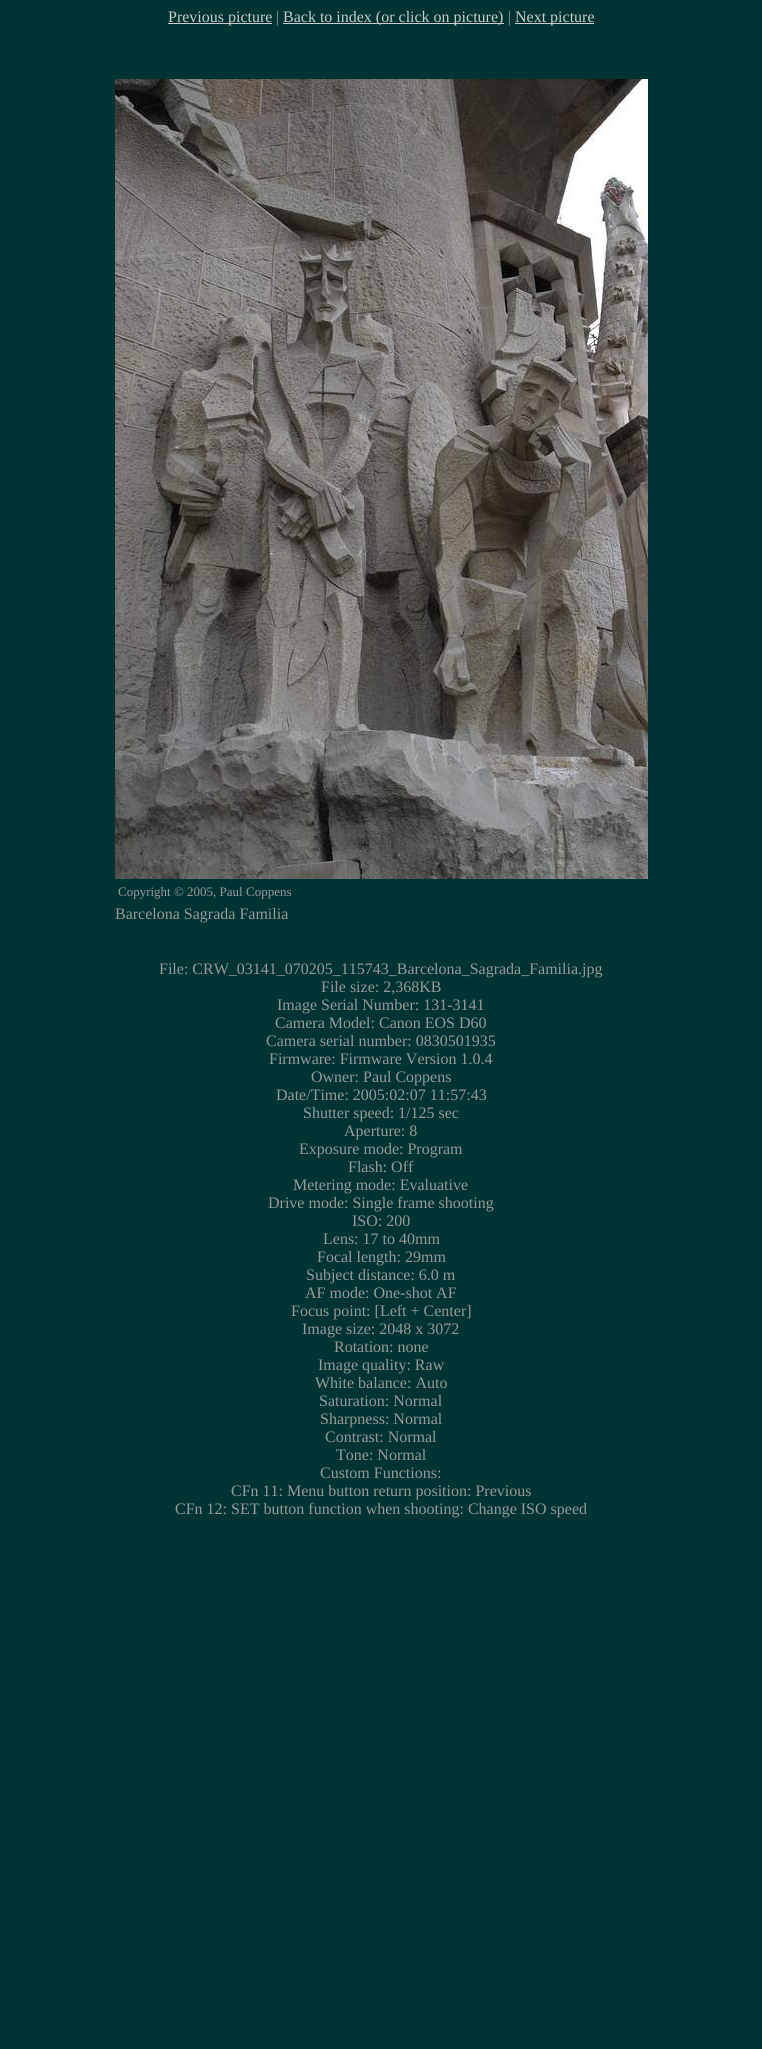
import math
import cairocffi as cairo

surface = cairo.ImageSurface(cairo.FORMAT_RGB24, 762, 2049)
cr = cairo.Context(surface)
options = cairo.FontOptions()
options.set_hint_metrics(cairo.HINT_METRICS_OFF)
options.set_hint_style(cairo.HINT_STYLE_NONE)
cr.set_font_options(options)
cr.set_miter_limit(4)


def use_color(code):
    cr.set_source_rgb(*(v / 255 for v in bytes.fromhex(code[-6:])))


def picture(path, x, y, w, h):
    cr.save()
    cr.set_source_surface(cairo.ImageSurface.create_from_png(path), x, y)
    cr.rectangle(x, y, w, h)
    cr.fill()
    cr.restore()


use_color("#003333")
cr.paint()
use_color("#cccccc")
cr.rectangle(168, 23, 104, 1)
cr.fill()
cr.select_font_face("Liberation Serif")
cr.set_font_size(16)
cr.move_to(168, 22)
cr.show_text("Previous picture")
use_color("#999999")
cr.move_to(276, 22)
cr.show_text("|")
use_color("#cccccc")
cr.rectangle(283, 23, 221, 1)
cr.fill()
cr.move_to(283, 22)
cr.show_text("Back to index (or click on picture)")
use_color("#999999")
cr.move_to(508, 22)
cr.show_text("|")
use_color("#cccccc")
cr.rectangle(515, 23, 79, 1)
cr.fill()
cr.move_to(515, 22)
cr.show_text("Next picture")
picture("img1.png", 115, 79, 533, 800)
cr.set_font_size(13)
use_color("#999999")
cr.move_to(118, 896)
cr.show_text("Copyright © 2005, Paul Coppens")
cr.set_font_size(16)
cr.move_to(115, 919)
cr.show_text("Barcelona Sagrada Familia")
cr.move_to(159, 974)
cr.show_text("File: CRW_03141_070205_115743_Barcelona_Sagrada_Familia.jpg")
cr.move_to(321, 992)
cr.show_text("File size: 2,368KB")
cr.move_to(277, 1010)
cr.show_text("Image Serial Number: 131-3141")
cr.move_to(275, 1028)
cr.show_text("Camera Model: Canon EOS D60")
cr.move_to(266, 1046)
cr.show_text("Camera serial number: 0830501935")
cr.move_to(269, 1064)
cr.show_text("Firmware: Firmware Version 1.0.4")
cr.move_to(311, 1082)
cr.show_text("Owner: Paul Coppens")
cr.move_to(276, 1100)
cr.show_text("Date/Time: 2005:02:07 11:57:43")
cr.move_to(303, 1118)
cr.show_text("Shutter speed: 1/125 sec")
cr.move_to(344, 1136)
cr.show_text("Aperture: 8")
cr.move_to(299, 1154)
cr.show_text("Exposure mode: Program")
cr.move_to(348, 1172)
cr.show_text("Flash: Off")
cr.move_to(293, 1190)
cr.show_text("Metering mode: Evaluative")
cr.move_to(268, 1208)
cr.show_text("Drive mode: Single frame shooting")
cr.move_to(352, 1226)
cr.show_text("ISO: 200")
cr.move_to(323, 1244)
cr.show_text("Lens: 17 to 40mm")
cr.move_to(317, 1262)
cr.show_text("Focal length: 29mm")
cr.move_to(306, 1280)
cr.show_text("Subject distance: 6.0 m")
cr.move_to(305, 1298)
cr.show_text("AF mode: One-shot AF")
cr.move_to(291, 1316)
cr.show_text("Focus point: [Left + Center]")
cr.move_to(302, 1334)
cr.show_text("Image size: 2048 x 3072")
cr.move_to(334, 1352)
cr.show_text("Rotation: none")
cr.move_to(318, 1370)
cr.show_text("Image quality: Raw")
cr.move_to(315, 1388)
cr.show_text("White balance: Auto")
cr.move_to(319, 1406)
cr.show_text("Saturation: Normal")
cr.move_to(320, 1424)
cr.show_text("Sharpness: Normal")
cr.move_to(325, 1442)
cr.show_text("Contrast: Normal")
cr.move_to(336, 1460)
cr.show_text("Tone: Normal")
cr.move_to(320, 1478)
cr.show_text("Custom Functions:")
cr.move_to(231, 1496)
cr.show_text("CFn 11: Menu button return position: Previous")
cr.move_to(175, 1514)
cr.show_text("CFn 12: SET button function when shooting: Change ISO speed")
surface.write_to_png("result.png")
